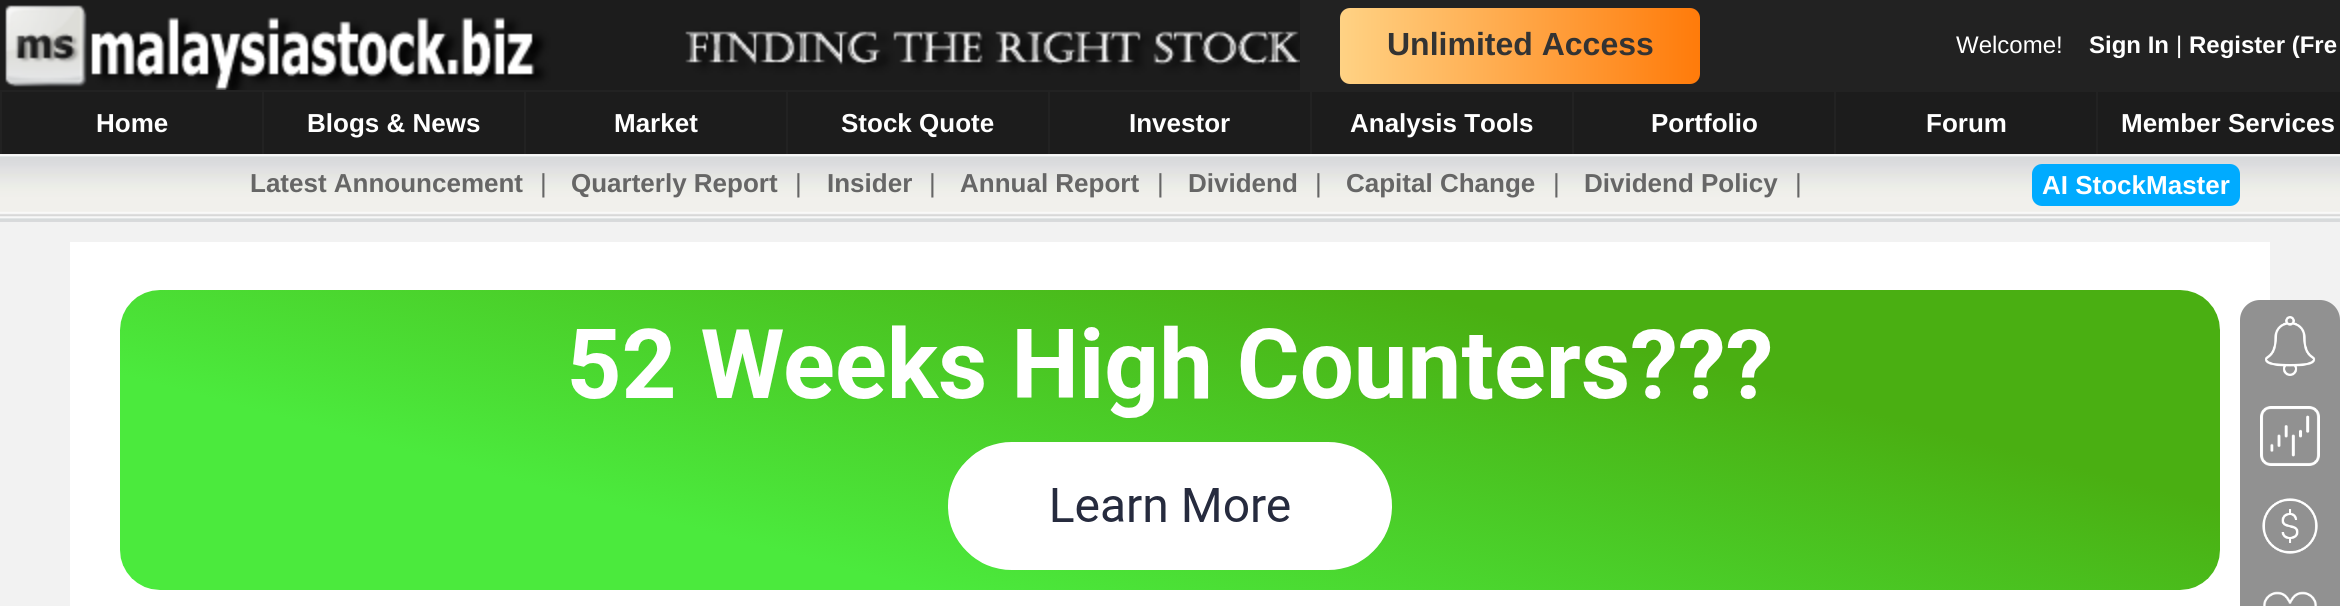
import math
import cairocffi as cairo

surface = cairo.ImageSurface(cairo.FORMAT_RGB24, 2340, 606)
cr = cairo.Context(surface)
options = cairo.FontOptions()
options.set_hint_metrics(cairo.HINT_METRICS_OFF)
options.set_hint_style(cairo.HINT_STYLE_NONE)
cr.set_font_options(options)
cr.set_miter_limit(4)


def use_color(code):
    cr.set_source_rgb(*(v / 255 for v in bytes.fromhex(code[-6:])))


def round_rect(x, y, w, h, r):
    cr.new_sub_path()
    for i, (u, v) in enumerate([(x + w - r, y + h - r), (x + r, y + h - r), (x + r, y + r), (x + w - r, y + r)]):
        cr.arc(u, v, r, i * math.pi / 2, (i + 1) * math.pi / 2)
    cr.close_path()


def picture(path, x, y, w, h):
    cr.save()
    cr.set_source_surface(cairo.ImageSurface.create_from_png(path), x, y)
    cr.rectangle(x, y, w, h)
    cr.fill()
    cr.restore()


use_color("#f2f2f2")
cr.paint()
use_color("#222222")
cr.rectangle(0, 0, 2340, 154)
cr.fill()
picture("img1.png", 0, 0, 1300, 90)
gradient = cairo.LinearGradient(1340, 46, 1700, 46)
gradient.add_color_stop_rgba(0, 1, 0.824, 0.518, 1)
gradient.add_color_stop_rgba(1, 1, 0.482, 0.039, 1)
cr.set_source(gradient)
round_rect(1340, 8, 360, 76, 10)
cr.fill()
cr.select_font_face("Liberation Sans", cairo.FONT_SLANT_NORMAL, cairo.FONT_WEIGHT_BOLD)
cr.set_font_size(32)
use_color("#333333")
cr.move_to(1387, 55)
cr.show_text("Unlimited Access")
cr.select_font_face("Liberation Sans")
cr.set_font_size(24)
use_color("#ffffff")
cr.move_to(1956, 53)
cr.show_text("Welcome!")
cr.select_font_face("Liberation Sans", cairo.FONT_SLANT_NORMAL, cairo.FONT_WEIGHT_BOLD)
cr.move_to(2089, 53)
cr.show_text("Sign In")
cr.select_font_face("Liberation Sans")
cr.move_to(2176, 53)
cr.show_text("|")
cr.select_font_face("Liberation Sans", cairo.FONT_SLANT_NORMAL, cairo.FONT_WEIGHT_BOLD)
cr.move_to(2189, 53)
cr.show_text("Register (Fre")
use_color("#1c1c1c")
cr.rectangle(2, 92, 260, 62)
cr.fill()
cr.set_font_size(26)
use_color("#ffffff")
cr.move_to(96, 132)
cr.show_text("Home")
use_color("#1c1c1c")
cr.rectangle(264, 92, 260, 62)
cr.fill()
use_color("#ffffff")
cr.move_to(307, 132)
cr.show_text("Blogs & News")
use_color("#1c1c1c")
cr.rectangle(526, 92, 260, 62)
cr.fill()
use_color("#ffffff")
cr.move_to(614, 132)
cr.show_text("Market")
use_color("#1c1c1c")
cr.rectangle(788, 92, 260, 62)
cr.fill()
use_color("#ffffff")
cr.move_to(841, 132)
cr.show_text("Stock Quote")
use_color("#1c1c1c")
cr.rectangle(1050, 92, 260, 62)
cr.fill()
use_color("#ffffff")
cr.move_to(1129, 132)
cr.show_text("Investor")
use_color("#1c1c1c")
cr.rectangle(1312, 92, 260, 62)
cr.fill()
use_color("#ffffff")
cr.move_to(1350, 132)
cr.show_text("Analysis Tools")
use_color("#1c1c1c")
cr.rectangle(1574, 92, 260, 62)
cr.fill()
use_color("#ffffff")
cr.move_to(1651, 132)
cr.show_text("Portfolio")
use_color("#1c1c1c")
cr.rectangle(1836, 92, 260, 62)
cr.fill()
use_color("#ffffff")
cr.move_to(1926, 132)
cr.show_text("Forum")
use_color("#1c1c1c")
cr.rectangle(2098, 92, 242, 62)
cr.fill()
use_color("#ffffff")
cr.move_to(2121, 132)
cr.show_text("Member Services")
picture("img2.png", 0, 155, 2340, 67)
use_color("#666666")
cr.move_to(250, 192)
cr.show_text("Latest Announcement")
cr.select_font_face("Liberation Sans")
cr.move_to(540, 192)
cr.show_text("|")
cr.select_font_face("Liberation Sans", cairo.FONT_SLANT_NORMAL, cairo.FONT_WEIGHT_BOLD)
cr.move_to(571, 192)
cr.show_text("Quarterly Report")
cr.select_font_face("Liberation Sans")
cr.move_to(795, 192)
cr.show_text("|")
cr.select_font_face("Liberation Sans", cairo.FONT_SLANT_NORMAL, cairo.FONT_WEIGHT_BOLD)
cr.move_to(827, 192)
cr.show_text("Insider")
cr.select_font_face("Liberation Sans")
cr.move_to(929, 192)
cr.show_text("|")
cr.select_font_face("Liberation Sans", cairo.FONT_SLANT_NORMAL, cairo.FONT_WEIGHT_BOLD)
cr.move_to(960, 192)
cr.show_text("Annual Report")
cr.select_font_face("Liberation Sans")
cr.move_to(1157, 192)
cr.show_text("|")
cr.select_font_face("Liberation Sans", cairo.FONT_SLANT_NORMAL, cairo.FONT_WEIGHT_BOLD)
cr.move_to(1188, 192)
cr.show_text("Dividend")
cr.select_font_face("Liberation Sans")
cr.move_to(1315, 192)
cr.show_text("|")
cr.select_font_face("Liberation Sans", cairo.FONT_SLANT_NORMAL, cairo.FONT_WEIGHT_BOLD)
cr.move_to(1346, 192)
cr.show_text("Capital Change")
cr.select_font_face("Liberation Sans")
cr.move_to(1553, 192)
cr.show_text("|")
cr.select_font_face("Liberation Sans", cairo.FONT_SLANT_NORMAL, cairo.FONT_WEIGHT_BOLD)
cr.move_to(1584, 192)
cr.show_text("Dividend Policy")
cr.select_font_face("Liberation Sans")
cr.move_to(1795, 192)
cr.show_text("|")
use_color("#00abff")
round_rect(2032, 164, 208, 42, 10)
cr.fill()
cr.select_font_face("Liberation Sans", cairo.FONT_SLANT_NORMAL, cairo.FONT_WEIGHT_BOLD)
use_color("#ffffff")
cr.move_to(2042, 194)
cr.show_text("AI StockMaster")
cr.rectangle(70, 242, 2200, 364)
cr.fill()
picture("img3.png", 120, 290, 2100, 300)
use_color("#919191")
round_rect(2240, 300, 100, 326, 20)
cr.fill()
picture("img4.png", 2265, 316, 51, 60)
picture("img5.png", 2260, 406, 60, 60)
picture("img6.png", 2262, 498, 56, 56)
picture("img7.png", 2263, 591, 55, 15)
surface.write_to_png("result.png")
